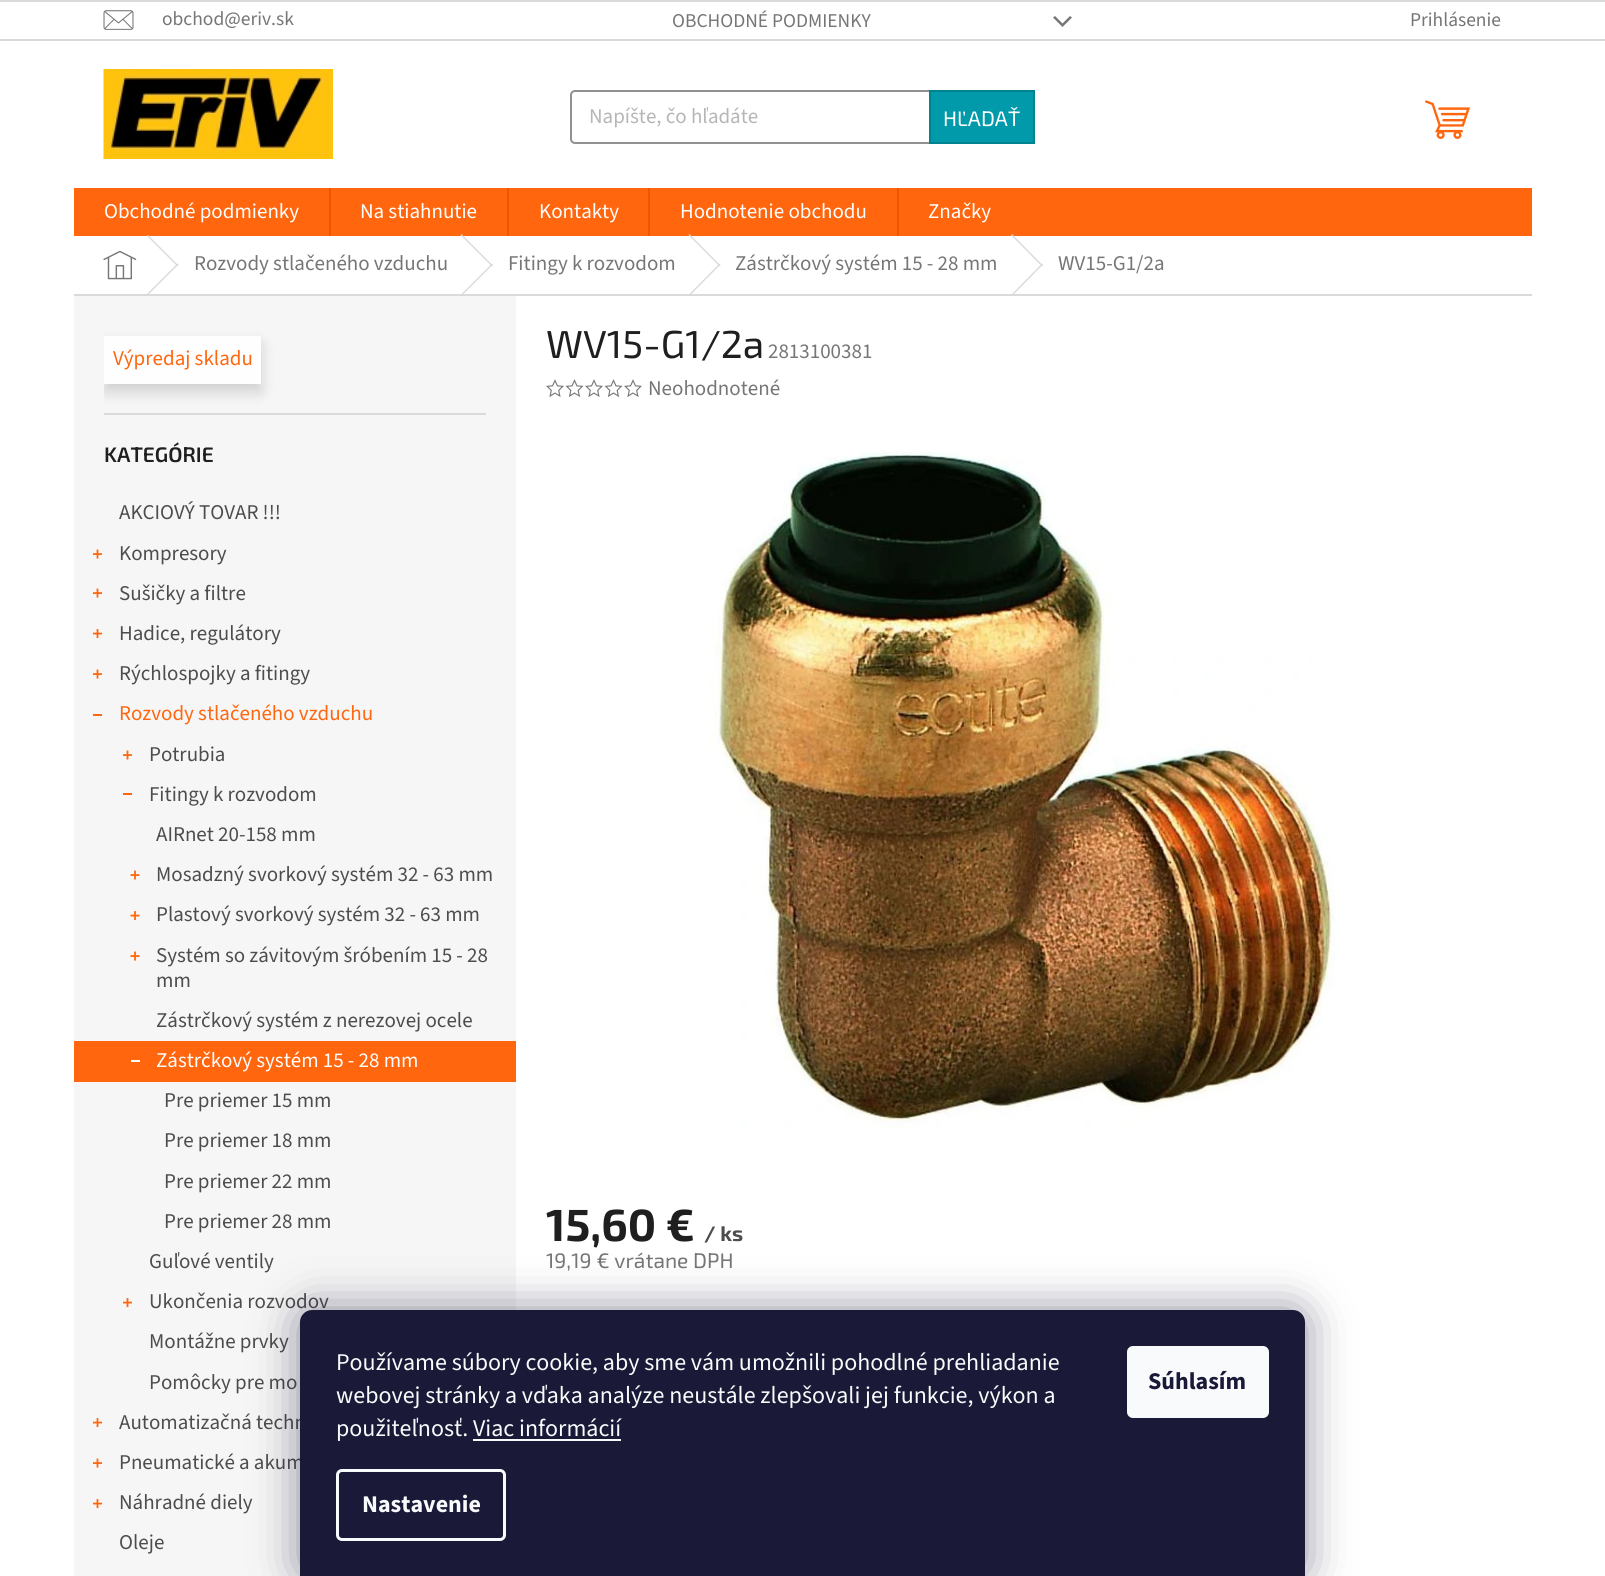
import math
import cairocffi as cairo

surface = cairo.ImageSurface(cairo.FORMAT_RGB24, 1605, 1576)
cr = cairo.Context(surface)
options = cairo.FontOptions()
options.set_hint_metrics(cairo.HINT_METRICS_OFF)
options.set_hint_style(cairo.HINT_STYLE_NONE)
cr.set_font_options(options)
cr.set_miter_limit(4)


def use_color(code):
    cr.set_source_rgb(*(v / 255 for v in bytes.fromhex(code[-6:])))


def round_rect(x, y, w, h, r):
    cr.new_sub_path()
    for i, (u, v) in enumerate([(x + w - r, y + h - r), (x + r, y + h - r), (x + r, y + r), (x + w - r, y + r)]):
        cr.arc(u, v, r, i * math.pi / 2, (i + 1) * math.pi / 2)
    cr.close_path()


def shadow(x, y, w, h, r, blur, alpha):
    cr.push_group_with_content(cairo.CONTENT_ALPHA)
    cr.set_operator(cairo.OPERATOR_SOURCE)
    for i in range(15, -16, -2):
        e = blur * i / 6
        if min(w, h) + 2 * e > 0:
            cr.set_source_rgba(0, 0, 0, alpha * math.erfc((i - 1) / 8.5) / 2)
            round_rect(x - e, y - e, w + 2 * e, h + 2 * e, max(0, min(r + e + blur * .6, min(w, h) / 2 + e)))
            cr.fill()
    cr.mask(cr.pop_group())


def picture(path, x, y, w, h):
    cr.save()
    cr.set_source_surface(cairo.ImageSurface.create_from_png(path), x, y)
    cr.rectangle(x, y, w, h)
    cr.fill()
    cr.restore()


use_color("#ffffff")
cr.paint()
use_color("#dadada")
cr.rectangle(0, 0, 1605, 2)
cr.fill()
cr.rectangle(0, 39, 1605, 2)
cr.fill()
picture("img1.png", 103, 10, 31, 20)
cr.select_font_face("Source Sans 3")
cr.set_font_size(19.5)
use_color("#767676")
cr.move_to(162, 25)
cr.show_text("obchod@eriv.sk")
cr.move_to(672, 27)
cr.show_text("OBCHODNÉ PODMIENKY")
cr.new_path()
cr.move_to(1053, 17.5)
cr.line_to(1055, 16)
cr.line_to(1062.5, 23.5)
cr.line_to(1070, 16)
cr.line_to(1072, 17.5)
cr.line_to(1062.5, 27)
cr.close_path()
cr.fill()
cr.move_to(1410, 26)
cr.show_text("Prihlásenie")
picture("img2.png", 103, 69, 230, 90)
round_rect(571, 91, 463, 52, 4)
use_color("#919191")
cr.stroke()
cr.set_font_size(21)
use_color("#b6b6b6")
cr.move_to(589, 123)
cr.show_text("Napíšte, čo hľadáte")
use_color("#009aab")
cr.rectangle(930, 91, 104, 52)
cr.fill_preserve()
use_color("#008391")
cr.stroke()
cr.select_font_face("Exo 2")
use_color("#ffffff")
cr.move_to(943, 126)
cr.show_text("HĽADAŤ")
picture("img3.png", 1425, 100, 45, 39)
use_color("#ff660e")
cr.rectangle(74, 188, 1458, 48)
cr.fill()
cr.select_font_face("Source Sans 3")
use_color("#ffffff")
cr.move_to(104, 218)
cr.show_text("Obchodné podmienky")
use_color("#eb5600")
cr.rectangle(329, 188, 2, 48)
cr.fill()
use_color("#ffffff")
cr.move_to(360, 218)
cr.show_text("Na stiahnutie")
use_color("#eb5600")
cr.rectangle(507, 188, 2, 48)
cr.fill()
use_color("#ffffff")
cr.move_to(539, 218)
cr.show_text("Kontakty")
use_color("#eb5600")
cr.rectangle(648, 188, 2, 48)
cr.fill()
use_color("#ffffff")
cr.move_to(680, 218)
cr.show_text("Hodnotenie obchodu")
use_color("#eb5600")
cr.rectangle(897, 188, 2, 48)
cr.fill()
use_color("#ffffff")
cr.move_to(928, 218)
cr.show_text("Značky")
use_color("#dadada")
cr.rectangle(74, 294, 1458, 2)
cr.fill()
picture("img4.png", 103, 250, 34, 30)
cr.new_path()
cr.move_to(147, 236)
cr.line_to(148, 235)
cr.line_to(178.5, 265.5)
cr.line_to(177.5, 266.5)
cr.close_path()
cr.fill()
cr.new_path()
cr.move_to(177.5, 263.5)
cr.line_to(178.5, 264.5)
cr.line_to(148, 295)
cr.line_to(147, 294)
cr.close_path()
cr.fill()
use_color("#767676")
cr.move_to(194, 270)
cr.show_text("Rozvody stlačeného vzduchu")
use_color("#dadada")
cr.new_path()
cr.move_to(460.5, 235)
cr.line_to(461.5, 234)
cr.line_to(493, 265.5)
cr.line_to(492, 266.5)
cr.close_path()
cr.fill()
cr.new_path()
cr.move_to(492, 263.5)
cr.line_to(493, 264.5)
cr.line_to(461.5, 296)
cr.line_to(460.5, 295)
cr.close_path()
cr.fill()
use_color("#767676")
cr.move_to(508, 270)
cr.show_text("Fitingy k rozvodom")
use_color("#dadada")
cr.new_path()
cr.move_to(688.5, 235)
cr.line_to(689.5, 234)
cr.line_to(720.5, 265.5)
cr.line_to(719.5, 266.5)
cr.close_path()
cr.fill()
cr.new_path()
cr.move_to(719.5, 263.5)
cr.line_to(720.5, 264.5)
cr.line_to(689.5, 296)
cr.line_to(688.5, 295)
cr.close_path()
cr.fill()
use_color("#767676")
cr.move_to(735, 270)
cr.show_text("Zástrčkový systém 15 - 28 mm")
use_color("#dadada")
cr.new_path()
cr.move_to(1011, 235)
cr.line_to(1012, 234)
cr.line_to(1043, 265.5)
cr.line_to(1042, 266.5)
cr.close_path()
cr.fill()
cr.new_path()
cr.move_to(1042, 263.5)
cr.line_to(1043, 264.5)
cr.line_to(1012, 296)
cr.line_to(1011, 295)
cr.close_path()
cr.fill()
use_color("#767676")
cr.move_to(1058, 270)
cr.show_text("WV15-G1/2a")
use_color("#f6f6f6")
cr.rectangle(74, 296, 442, 1280)
cr.fill()
use_color("#dadada")
cr.rectangle(104, 413, 382, 2)
cr.fill()
cr.save()
cr.rectangle(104, 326, 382, 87)
cr.clip()
use_color("#000000")
shadow(104, 344, 157, 48, 0, 7.5, 0.16)
cr.restore()
use_color("#fefefe")
cr.rectangle(104, 336, 157, 48)
cr.fill()
use_color("#ff660e")
cr.move_to(113, 365)
cr.show_text("Výpredaj skladu")
cr.select_font_face("Exo 2 SemiBold")
use_color("#1f1f1f")
cr.move_to(104, 462)
cr.show_text("KATEGÓRIE")
cr.select_font_face("Source Sans 3")
use_color("#4d4d4d")
cr.move_to(119, 519)
cr.show_text("AKCIOVÝ TOVAR !!!")
picture("img5.png", 93, 549, 9, 10)
cr.move_to(119, 560)
cr.show_text("Kompresory")
picture("img5.png", 93, 588, 9, 10)
cr.move_to(119, 600)
cr.show_text("Sušičky a filtre")
picture("img6.png", 93, 629, 9, 10)
cr.move_to(119, 640)
cr.show_text("Hadice, regulátory")
picture("img5.png", 93, 669, 9, 10)
cr.move_to(119, 680)
cr.show_text("Rýchlospojky a fitingy")
use_color("#ff660e")
cr.rectangle(93, 714, 9, 2)
cr.fill()
cr.move_to(119, 720)
cr.show_text("Rozvody stlačeného vzduchu")
picture("img5.png", 123, 750, 9, 10)
use_color("#4d4d4d")
cr.move_to(149, 761)
cr.show_text("Potrubia")
use_color("#ff660e")
cr.rectangle(123, 793, 9, 2)
cr.fill()
use_color("#4d4d4d")
cr.move_to(149, 801)
cr.show_text("Fitingy k rozvodom")
cr.move_to(156, 841)
cr.show_text("AIRnet 20-158 mm")
picture("img7.png", 130, 870, 10, 10)
cr.move_to(156, 881)
cr.show_text("Mosadzný svorkový systém 32 - 63 mm")
picture("img8.png", 130, 911, 10, 10)
cr.move_to(156, 921)
cr.show_text("Plastový svorkový systém 32 - 63 mm")
picture("img7.png", 130, 951, 10, 10)
cr.move_to(156, 962)
cr.show_text("Systém so závitovým šróbením 15 - 28")
cr.move_to(156, 987)
cr.show_text("mm")
cr.move_to(156, 1027)
cr.show_text("Zástrčkový systém z nerezovej ocele")
use_color("#ff660e")
cr.rectangle(74, 1041, 442, 41)
cr.fill()
use_color("#ffffff")
cr.rectangle(131, 1060, 9, 2)
cr.fill()
cr.move_to(156, 1067)
cr.show_text("Zástrčkový systém 15 - 28 mm")
use_color("#4d4d4d")
cr.move_to(164, 1107)
cr.show_text("Pre priemer 15 mm")
cr.move_to(164, 1147)
cr.show_text("Pre priemer 18 mm")
cr.move_to(164, 1188)
cr.show_text("Pre priemer 22 mm")
cr.move_to(164, 1228)
cr.show_text("Pre priemer 28 mm")
cr.move_to(149, 1268)
cr.show_text("Guľové ventily")
picture("img6.png", 123, 1298, 9, 10)
cr.move_to(149, 1308)
cr.show_text("Ukončenia rozvodov")
cr.move_to(149, 1348)
cr.show_text("Montážne prvky")
cr.move_to(149, 1389)
cr.show_text("Pomôcky pre mo")
picture("img6.png", 93, 1418, 9, 10)
cr.move_to(119, 1429)
cr.show_text("Automatizačná techn")
picture("img5.png", 93, 1458, 9, 10)
cr.move_to(119, 1469)
cr.show_text("Pneumatické a akum")
picture("img6.png", 93, 1499, 9, 10)
cr.move_to(119, 1509)
cr.show_text("Náhradné diely")
cr.move_to(119, 1549)
cr.show_text("Oleje")
cr.select_font_face("Exo 2")
cr.set_font_size(39)
use_color("#1f1f1f")
cr.move_to(546, 358)
cr.show_text("WV15-G1/2a")
cr.select_font_face("Source Sans 3")
cr.set_font_size(21)
use_color("#767676")
cr.move_to(768, 358)
cr.show_text("2813100381")
picture("img9.png", 546, 379, 18, 18)
picture("img10.png", 565, 379, 19, 18)
picture("img9.png", 585, 379, 18, 18)
picture("img10.png", 604, 379, 19, 18)
picture("img9.png", 624, 379, 18, 18)
cr.move_to(648, 395)
cr.show_text("Neohodnotené")
picture("img11.png", 710, 451, 625, 677)
use_color("#67523d")
cr.move_to(1051, 984)
cr.show_text(".")
cr.select_font_face("Exo 2", cairo.FONT_SLANT_NORMAL, cairo.FONT_WEIGHT_BOLD)
cr.set_font_size(45)
use_color("#1f1f1f")
cr.move_to(546, 1241)
cr.show_text("15,60 €")
cr.set_font_size(21)
use_color("#4d4d4d")
cr.move_to(704, 1241)
cr.show_text("/ ks")
cr.select_font_face("Exo 2")
use_color("#767676")
cr.move_to(546, 1268)
cr.show_text("19,19 € vrátane DPH")
use_color("#1b1939")
shadow(300, 1310, 1005, 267, 12, 22.5, 0.5)
use_color("#1a1937")
cr.new_path()
cr.move_to(312, 1310)
cr.line_to(1293, 1310)
cr.curve_to(1299.5, 1310, 1305, 1315.5, 1305, 1322)
cr.line_to(1305, 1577)
cr.line_to(300, 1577)
cr.line_to(300, 1322)
cr.curve_to(300, 1315.5, 305.5, 1310, 312, 1310)
cr.close_path()
cr.fill()
cr.select_font_face("Source Sans 3")
cr.set_font_size(24)
use_color("#f8fafb")
cr.move_to(336, 1370)
cr.show_text("Používame súbory cookie, aby sme vám umožnili pohodlné prehliadanie")
cr.move_to(336, 1403)
cr.show_text("webovej stránky a vďaka analýze neustále zlepšovali jej funkcie, výkon a")
cr.move_to(336, 1436)
cr.show_text("použiteľnosť. Viac informácií")
cr.rectangle(473, 1439, 148, 2)
cr.fill()
round_rect(337.5, 1470.5, 167, 69, 4.5)
cr.set_line_width(3)
cr.stroke()
cr.select_font_face("Source Sans 3", cairo.FONT_SLANT_NORMAL, cairo.FONT_WEIGHT_BOLD)
cr.move_to(362, 1512)
cr.show_text("Nastavenie")
round_rect(1127, 1346, 142, 72, 6)
cr.fill()
use_color("#1a1937")
cr.move_to(1148, 1389)
cr.show_text("Súhlasím")
surface.write_to_png("result.png")
